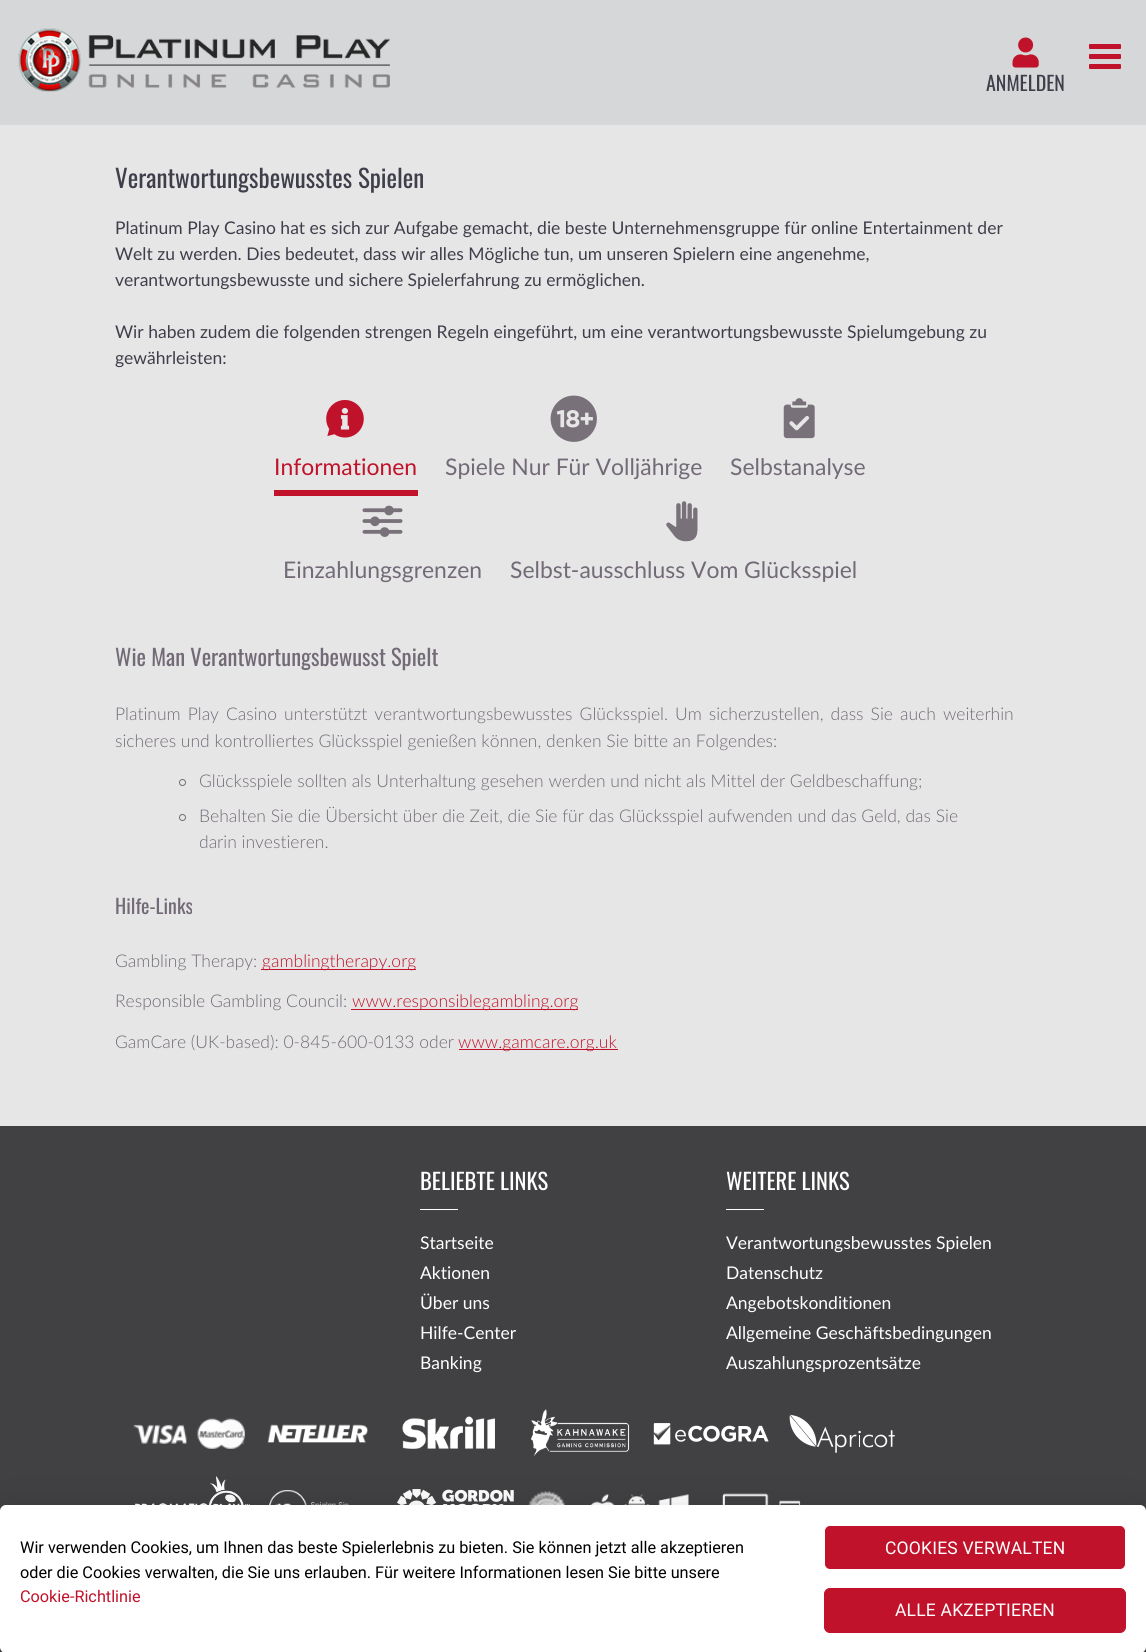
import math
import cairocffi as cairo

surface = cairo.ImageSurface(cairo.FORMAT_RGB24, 1146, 1652)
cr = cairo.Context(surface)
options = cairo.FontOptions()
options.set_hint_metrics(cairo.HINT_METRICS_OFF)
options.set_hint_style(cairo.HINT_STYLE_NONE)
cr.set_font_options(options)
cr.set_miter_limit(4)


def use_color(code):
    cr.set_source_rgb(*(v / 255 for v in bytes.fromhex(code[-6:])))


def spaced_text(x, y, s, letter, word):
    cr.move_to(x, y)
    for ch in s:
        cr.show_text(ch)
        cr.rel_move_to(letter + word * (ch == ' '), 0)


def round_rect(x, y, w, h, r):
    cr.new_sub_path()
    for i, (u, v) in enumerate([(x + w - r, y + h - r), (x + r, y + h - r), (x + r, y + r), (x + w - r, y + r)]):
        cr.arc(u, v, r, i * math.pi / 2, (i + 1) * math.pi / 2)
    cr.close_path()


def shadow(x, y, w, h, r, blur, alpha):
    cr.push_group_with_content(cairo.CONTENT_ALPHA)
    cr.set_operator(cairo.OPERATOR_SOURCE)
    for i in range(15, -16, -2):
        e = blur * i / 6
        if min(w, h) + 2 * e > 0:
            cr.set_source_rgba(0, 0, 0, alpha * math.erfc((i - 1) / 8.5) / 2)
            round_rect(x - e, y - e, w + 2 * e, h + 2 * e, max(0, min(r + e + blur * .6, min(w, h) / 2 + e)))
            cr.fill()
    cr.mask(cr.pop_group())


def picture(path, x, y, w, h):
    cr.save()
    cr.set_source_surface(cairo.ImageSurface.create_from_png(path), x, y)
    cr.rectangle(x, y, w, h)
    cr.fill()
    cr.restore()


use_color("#e6e6e6")
cr.paint()
use_color("#d6d7d9")
cr.rectangle(0, 0, 1146, 125)
cr.fill()
picture("img1.png", 18, 28, 372, 64)
use_color("#c0122a")
round_rect(1089, 44, 32, 5, 1)
cr.fill()
round_rect(1089, 54, 32, 5, 1)
cr.fill()
round_rect(1089, 64, 32, 5, 1)
cr.fill()
picture("img2.png", 1012, 37, 27, 31)
cr.select_font_face("Oswald")
cr.set_font_size(20)
use_color("#3f3f4b")
cr.move_to(986, 91)
cr.show_text("ANMELDEN")
cr.set_font_size(25)
cr.move_to(115, 188)
cr.show_text("Verantwortungsbewusstes Spielen")
cr.select_font_face("Lato")
cr.set_font_size(17.5)
cr.move_to(115, 234)
cr.show_text("Platinum Play Casino hat es sich zur Aufgabe gemacht, die beste Unternehmensgruppe für online Entertainment der")
cr.move_to(115, 260)
cr.show_text("Welt zu werden. Dies bedeutet, dass wir alles Mögliche tun, um unseren Spielern eine angenehme,")
cr.move_to(115, 286)
cr.show_text("verantwortungsbewusste und sichere Spielerfahrung zu ermöglichen.")
cr.move_to(115, 338)
cr.show_text("Wir haben zudem die folgenden strengen Regeln eingeführt, um eine verantwortungsbewusste Spielumgebung zu")
cr.move_to(115, 364)
cr.show_text("gewährleisten:")
use_color("#c0122a")
cr.rectangle(274, 490, 144, 6)
cr.fill()
picture("img3.png", 326, 400, 38, 38)
cr.set_font_size(22.9)
cr.move_to(274, 475)
cr.show_text("Informationen")
picture("img4.png", 550, 395, 47, 47)
use_color("#726a76")
cr.move_to(445, 475)
cr.show_text("Spiele Nur Für Volljährige")
picture("img5.png", 783, 398, 32, 41)
cr.move_to(730, 475)
cr.show_text("Selbstanalyse")
picture("img6.png", 362, 505, 41, 32)
cr.move_to(283, 578)
cr.show_text("Einzahlungsgrenzen")
picture("img7.png", 666, 501, 32, 41)
cr.move_to(510, 578)
cr.show_text("Selbst-ausschluss Vom Glücksspiel")
cr.select_font_face("Oswald")
cr.set_font_size(22.5)
cr.move_to(115, 666)
cr.show_text("Wie Man Verantwortungsbewusst Spielt")
cr.select_font_face("Lato Light")
cr.set_font_size(17.5)
spaced_text(115, 720, "Platinum Play Casino unterstützt verantwortungsbewusstes Glücksspiel. Um sicherzustellen, dass Sie auch weiterhin", 0, 2.25)
cr.move_to(115, 747)
cr.show_text("sicheres und kontrolliertes Glücksspiel genießen können, denken Sie bitte an Folgendes:")
cr.new_path()
cr.arc(182.5, 782.5, 3, 0, 2 * math.pi)
cr.set_line_width(1)
cr.stroke()
cr.move_to(199, 787)
cr.show_text("Glücksspiele sollten als Unterhaltung gesehen werden und nicht als Mittel der Geldbeschaffung;")
cr.new_path()
cr.arc(182.5, 817.5, 3, 0, 2 * math.pi)
cr.stroke()
cr.move_to(199, 822)
cr.show_text("Behalten Sie die Übersicht über die Zeit, die Sie für das Glücksspiel aufwenden und das Geld, das Sie")
cr.move_to(199, 848)
cr.show_text("darin investieren.")
cr.select_font_face("Oswald")
cr.set_font_size(20)
cr.move_to(115, 914)
cr.show_text("Hilfe-Links")
cr.select_font_face("Lato Light")
cr.set_font_size(17.5)
cr.move_to(115, 967)
cr.show_text("Gambling Therapy:")
use_color("#c0122a")
cr.rectangle(261, 969, 155, 1)
cr.fill()
cr.move_to(262, 967)
cr.show_text("gamblingtherapy.org")
use_color("#726a76")
cr.move_to(115, 1007)
cr.show_text("Responsible Gambling Council:")
use_color("#c0122a")
cr.rectangle(351, 1009, 227, 1)
cr.fill()
cr.move_to(352, 1007)
cr.show_text("www.responsiblegambling.org")
use_color("#726a76")
cr.move_to(115, 1048)
cr.show_text("GamCare (UK-based): 0-845-600-0133 oder")
use_color("#c0122a")
cr.rectangle(459, 1049, 159, 1)
cr.fill()
cr.move_to(458, 1048)
cr.show_text("www.gamcare.org.uk")
use_color("#414042")
cr.rectangle(0, 1126, 1146, 526)
cr.fill()
cr.select_font_face("Oswald")
cr.set_font_size(22.5)
use_color("#ffffff")
cr.move_to(420, 1190)
cr.show_text("BELIEBTE LINKS")
cr.rectangle(420, 1209, 38, 1)
cr.fill()
cr.select_font_face("Lato")
cr.set_font_size(17.5)
cr.move_to(420, 1249)
cr.show_text("Startseite")
cr.move_to(420, 1279)
cr.show_text("Aktionen")
cr.move_to(420, 1309)
cr.show_text("Über uns")
cr.move_to(420, 1339)
cr.show_text("Hilfe-Center")
cr.move_to(420, 1369)
cr.show_text("Banking")
cr.select_font_face("Oswald")
cr.set_font_size(22.5)
cr.move_to(726, 1190)
cr.show_text("WEITERE LINKS")
cr.rectangle(726, 1209, 38, 1)
cr.fill()
cr.select_font_face("Lato")
cr.set_font_size(17.5)
cr.move_to(726, 1249)
cr.show_text("Verantwortungsbewusstes Spielen")
cr.move_to(726, 1279)
cr.show_text("Datenschutz")
cr.move_to(726, 1309)
cr.show_text("Angebotskonditionen")
cr.move_to(726, 1339)
cr.show_text("Allgemeine Geschäftsbedingungen")
cr.move_to(726, 1369)
cr.show_text("Auszahlungsprozentsätze")
picture("img8.png", 133, 1418, 112, 31)
picture("img9.png", 267, 1424, 102, 19)
picture("img10.png", 402, 1416, 93, 33)
picture("img11.png", 531, 1409, 99, 48)
picture("img12.png", 653, 1423, 116, 22)
picture("img13.png", 789, 1414, 106, 39)
picture("img14.png", 135, 1476, 115, 29)
picture("img15.png", 269, 1490, 80, 15)
picture("img16.png", 397, 1489, 117, 16)
picture("img17.png", 527, 1491, 39, 14)
picture("img18.png", 591, 1494, 98, 11)
picture("img19.png", 722, 1493, 79, 12)
use_color("#000000")
shadow(6, 1521, 1134, 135, 0, 6, 0.2)
shadow(-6, 1506, 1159, 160, 13, 19, 0.12)
use_color("#ffffff")
round_rect(0, 1505, 1146, 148, 6)
cr.fill()
cr.select_font_face("Roboto")
cr.set_font_size(16.25)
use_color("#000000")
cr.move_to(20, 1553)
cr.show_text("Wir verwenden Cookies, um Ihnen das beste Spielerlebnis zu bieten. Sie können jetzt alle akzeptieren")
cr.move_to(20, 1578)
cr.show_text("oder die Cookies verwalten, die Sie uns erlauben. Für weitere Informationen lesen Sie bitte unsere")
use_color("#c0122a")
cr.move_to(20, 1602)
cr.show_text("Cookie-Richtlinie")
round_rect(824.5, 1525.5, 301, 44, 5.5)
cr.fill_preserve()
use_color("#ffffff")
cr.stroke()
cr.set_font_size(17.5)
spaced_text(885, 1554, "COOKIES VERWALTEN", 0.2, 0)
use_color("#c0122a")
round_rect(824.5, 1588.5, 301, 44, 5.5)
cr.fill_preserve()
cr.stroke()
use_color("#ffffff")
spaced_text(895, 1616, "ALLE AKZEPTIEREN", 0.2, 0)
surface.write_to_png("result.png")
